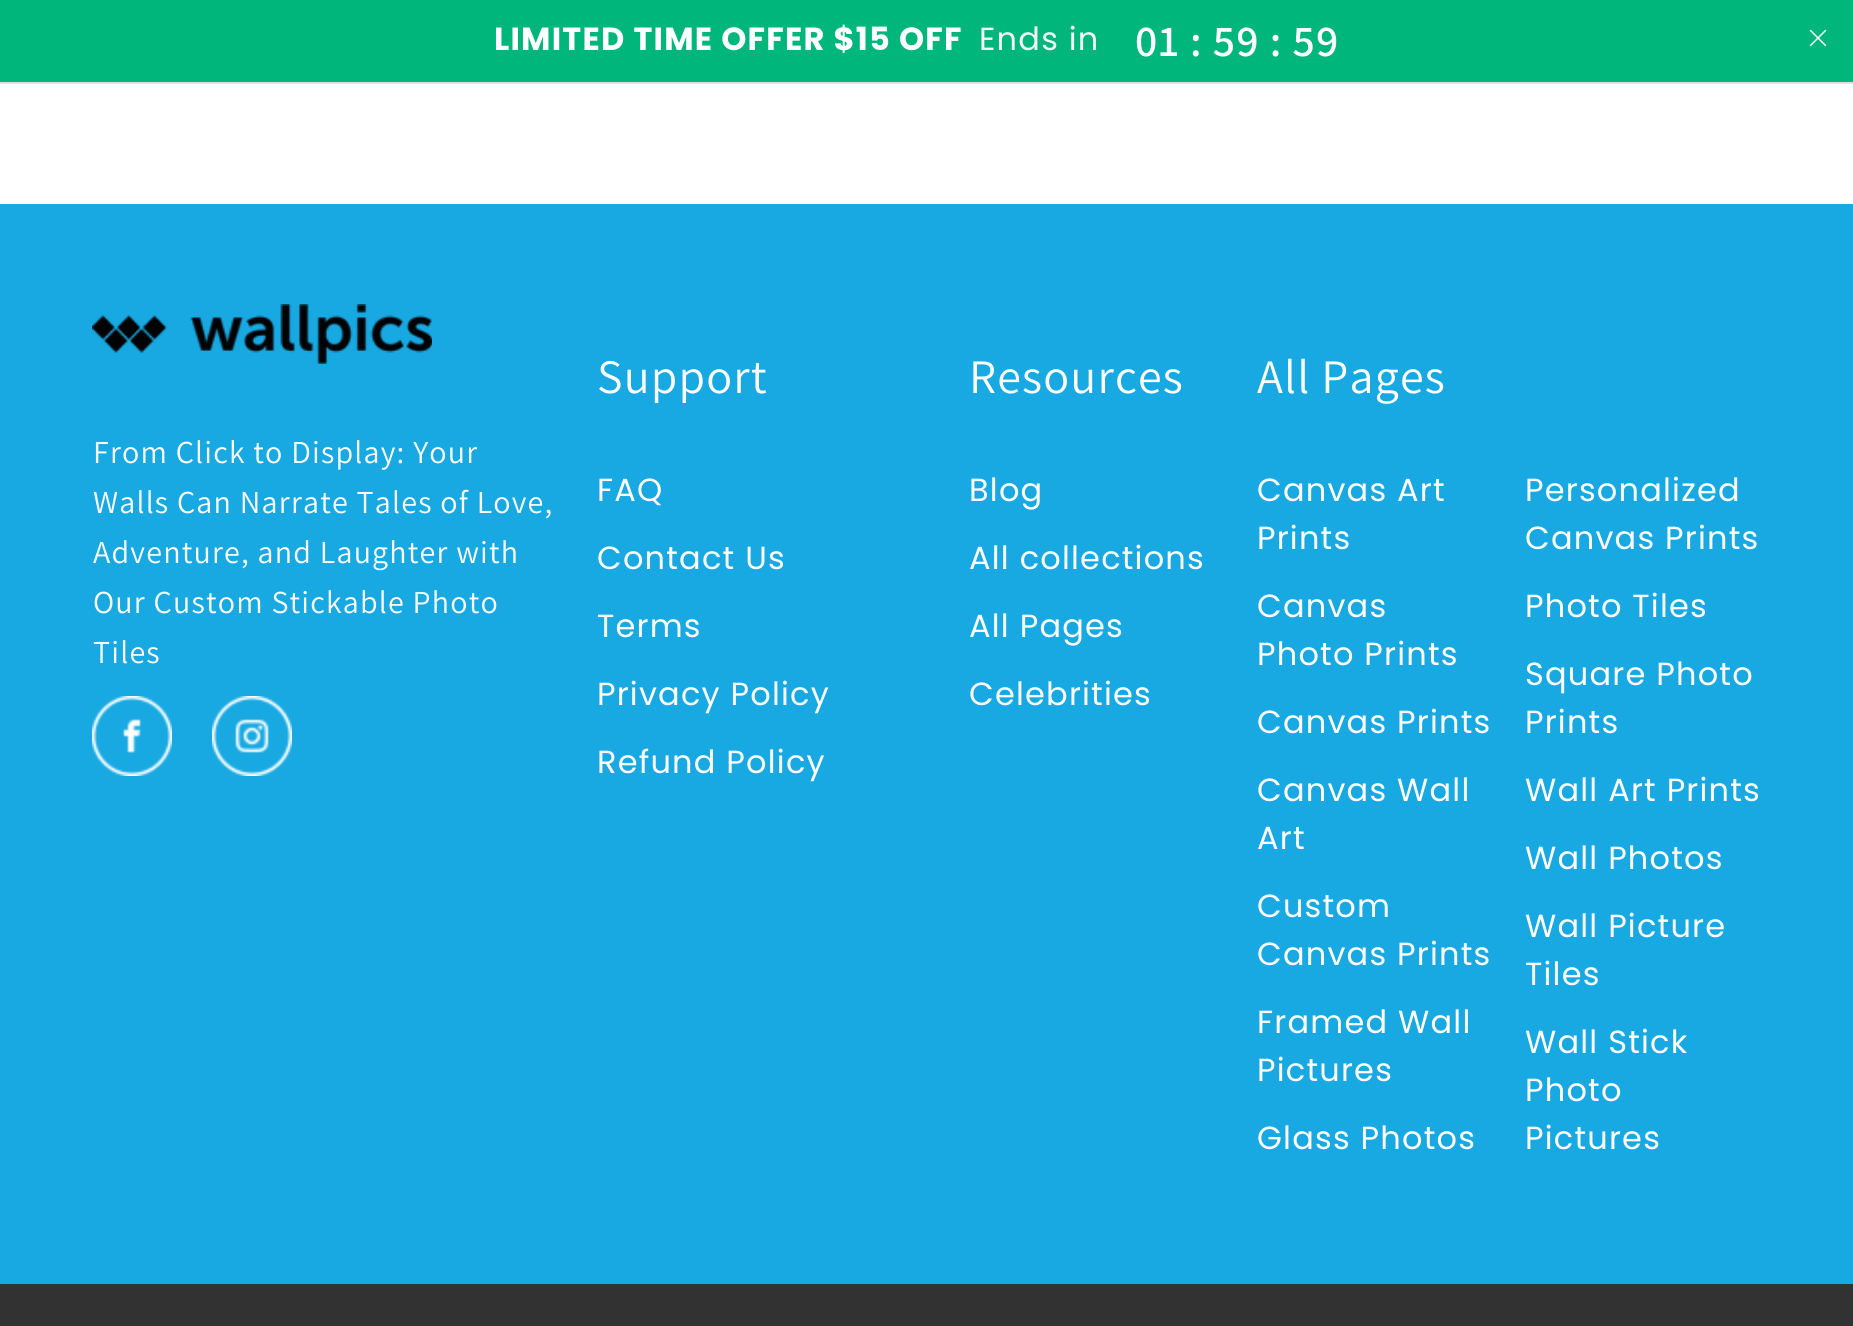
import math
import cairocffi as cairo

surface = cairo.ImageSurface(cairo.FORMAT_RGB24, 1853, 1326)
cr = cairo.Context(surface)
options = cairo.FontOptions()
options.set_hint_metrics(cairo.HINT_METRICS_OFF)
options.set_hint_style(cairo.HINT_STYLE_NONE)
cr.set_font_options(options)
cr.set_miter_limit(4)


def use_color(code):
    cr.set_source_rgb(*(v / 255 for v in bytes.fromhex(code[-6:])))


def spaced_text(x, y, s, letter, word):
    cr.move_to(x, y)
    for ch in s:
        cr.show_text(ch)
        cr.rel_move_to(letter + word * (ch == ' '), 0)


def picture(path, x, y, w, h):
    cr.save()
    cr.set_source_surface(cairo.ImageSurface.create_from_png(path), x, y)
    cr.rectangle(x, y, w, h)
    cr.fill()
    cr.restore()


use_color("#ffffff")
cr.paint()
use_color("#e1e1e1")
cr.rectangle(0, 82, 1853, 2)
cr.fill()
use_color("#00b67a")
cr.rectangle(0, 0, 1853, 82)
cr.fill()
cr.select_font_face("Poppins", cairo.FONT_SLANT_NORMAL, cairo.FONT_WEIGHT_BOLD)
cr.set_font_size(32)
use_color("#ffffff")
spaced_text(494, 50, "LIMITED TIME OFFER $15 OFF", 1.2, 0)
cr.select_font_face("Poppins")
use_color("#f4f4f5")
spaced_text(979, 50, "Ends in", 1.2, 0)
cr.select_font_face("Assistant SemiBold")
cr.set_font_size(44)
use_color("#ffffff")
spaced_text(1135, 56, "01 : 59 : 59", 1.2, 0)
picture("img1.png", 1809, 29, 18, 18)
use_color("#18a9e3")
cr.rectangle(0, 204, 1853, 1080)
cr.fill()
picture("img2.png", 92, 304, 340, 60)
cr.select_font_face("Assistant")
cr.set_font_size(32)
use_color("#ffffff")
spaced_text(93, 463, "From Click to Display: Your", 1.2, 0)
spaced_text(93, 513, "Walls Can Narrate Tales of Love,", 1.2, 0)
spaced_text(93, 563, "Adventure, and Laughter with", 1.2, 0)
spaced_text(93, 613, "Our Custom Stickable Photo", 1.2, 0)
spaced_text(93, 663, "Tiles", 1.2, 0)
picture("img3.png", 92, 696, 80, 80)
picture("img4.png", 212, 696, 80, 80)
cr.set_font_size(48)
spaced_text(597, 393, "Support", 1.2, 0)
cr.select_font_face("Poppins")
cr.set_font_size(32)
spaced_text(597, 501, "FAQ", 1.2, 0)
spaced_text(597, 569, "Contact Us", 1.2, 0)
spaced_text(597, 637, "Terms", 1.2, 0)
spaced_text(597, 705, "Privacy Policy", 1.2, 0)
spaced_text(597, 773, "Refund Policy", 1.2, 0)
cr.select_font_face("Assistant")
cr.set_font_size(48)
spaced_text(969, 393, "Resources", 1.2, 0)
cr.select_font_face("Poppins")
cr.set_font_size(32)
spaced_text(969, 501, "Blog", 1.2, 0)
spaced_text(969, 569, "All collections", 1.2, 0)
spaced_text(969, 637, "All Pages", 1.2, 0)
spaced_text(969, 705, "Celebrities", 1.2, 0)
cr.select_font_face("Assistant")
cr.set_font_size(48)
spaced_text(1257, 393, "All Pages", 1.2, 0)
cr.select_font_face("Poppins")
cr.set_font_size(32)
spaced_text(1257, 501, "Canvas Art", 1.2, 0)
spaced_text(1257, 549, "Prints", 1.2, 0)
spaced_text(1525, 501, "Personalized", 1.2, 0)
spaced_text(1525, 549, "Canvas Prints", 1.2, 0)
spaced_text(1257, 617, "Canvas", 1.2, 0)
spaced_text(1257, 665, "Photo Prints", 1.2, 0)
spaced_text(1525, 617, "Photo Tiles", 1.2, 0)
spaced_text(1257, 733, "Canvas Prints", 1.2, 0)
spaced_text(1525, 685, "Square Photo", 1.2, 0)
spaced_text(1525, 733, "Prints", 1.2, 0)
spaced_text(1257, 801, "Canvas Wall", 1.2, 0)
spaced_text(1257, 849, "Art", 1.2, 0)
spaced_text(1525, 801, "Wall Art Prints", 1.2, 0)
spaced_text(1525, 869, "Wall Photos", 1.2, 0)
spaced_text(1257, 917, "Custom", 1.2, 0)
spaced_text(1257, 965, "Canvas Prints", 1.2, 0)
spaced_text(1525, 937, "Wall Picture", 1.2, 0)
spaced_text(1525, 985, "Tiles", 1.2, 0)
spaced_text(1257, 1033, "Framed Wall", 1.2, 0)
spaced_text(1257, 1081, "Pictures", 1.2, 0)
spaced_text(1525, 1053, "Wall Stick", 1.2, 0)
spaced_text(1525, 1101, "Photo", 1.2, 0)
spaced_text(1525, 1149, "Pictures", 1.2, 0)
spaced_text(1257, 1149, "Glass Photos", 1.2, 0)
use_color("#323232")
cr.rectangle(0, 1284, 1853, 42)
cr.fill()
surface.write_to_png("result.png")
